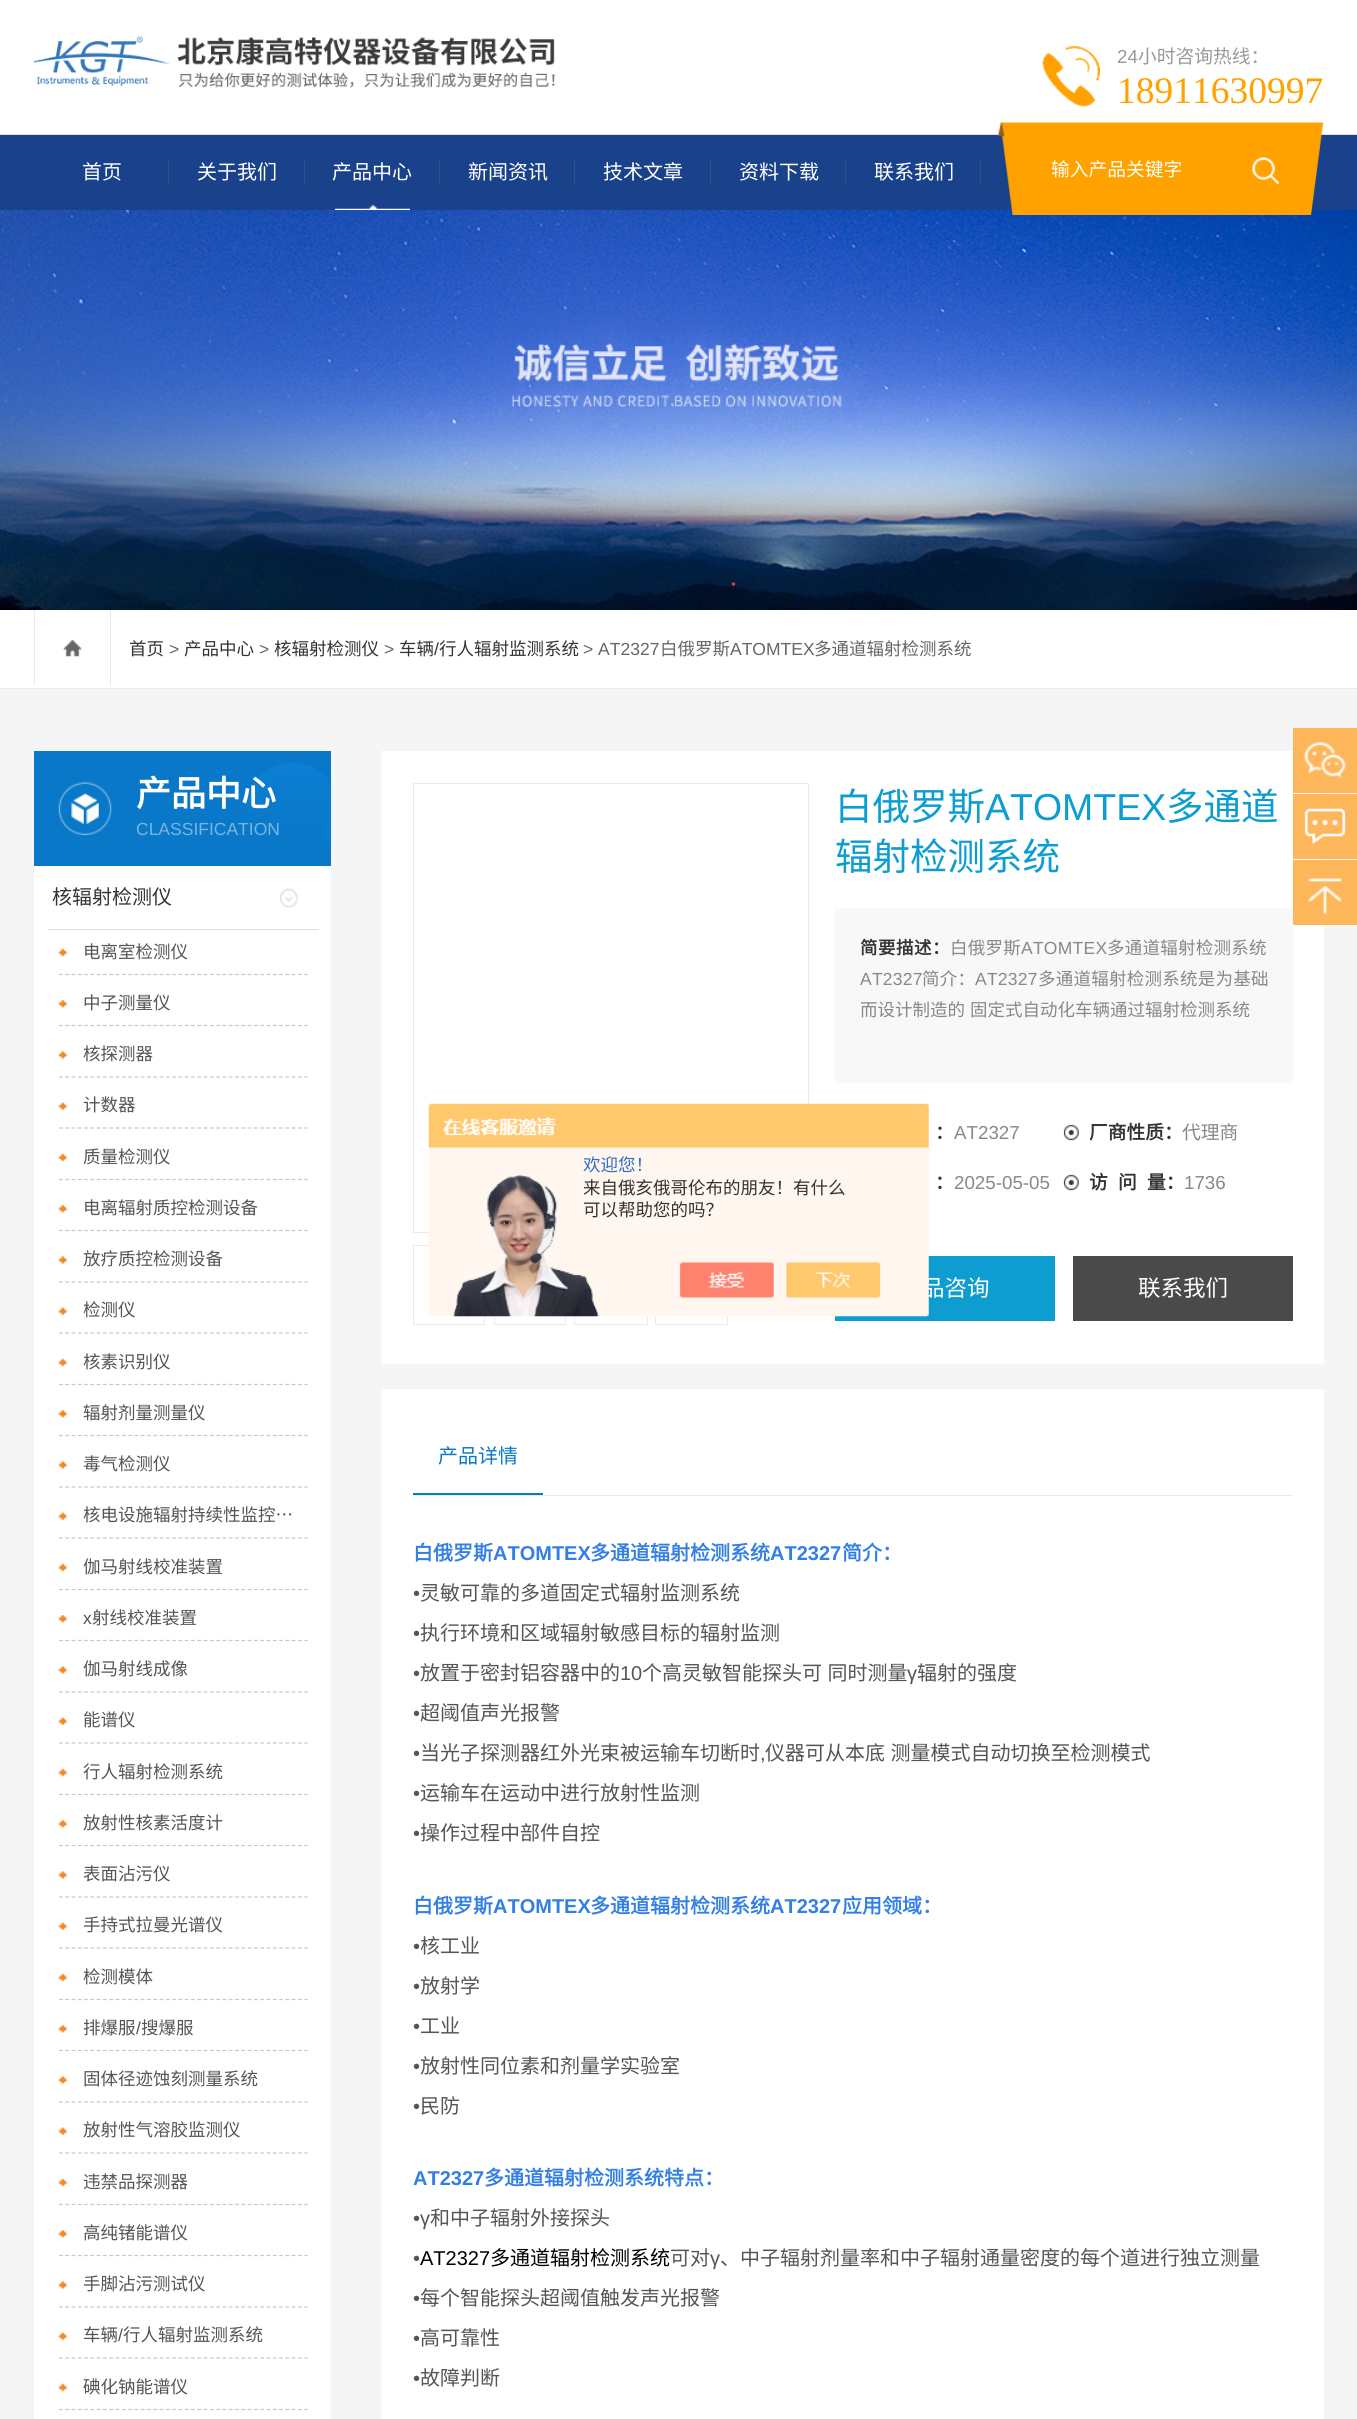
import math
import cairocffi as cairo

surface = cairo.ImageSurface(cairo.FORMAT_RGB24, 1357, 2419)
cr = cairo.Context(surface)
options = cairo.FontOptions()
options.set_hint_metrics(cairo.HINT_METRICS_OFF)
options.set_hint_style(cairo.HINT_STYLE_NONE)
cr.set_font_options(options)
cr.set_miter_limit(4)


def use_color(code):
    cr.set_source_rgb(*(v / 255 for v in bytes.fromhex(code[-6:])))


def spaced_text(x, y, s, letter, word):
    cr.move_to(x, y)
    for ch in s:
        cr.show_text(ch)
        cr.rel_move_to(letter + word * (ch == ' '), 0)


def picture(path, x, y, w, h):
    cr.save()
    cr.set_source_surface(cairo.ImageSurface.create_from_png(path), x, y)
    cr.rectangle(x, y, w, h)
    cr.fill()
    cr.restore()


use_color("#ffffff")
cr.paint()
use_color("#1a428b")
cr.rectangle(0, 135, 1357, 75)
cr.fill()
cr.select_font_face("Noto Sans CJK SC")
cr.set_font_size(20)
use_color("#ffffff")
cr.move_to(82, 179)
cr.show_text("首页")
use_color("#2c5194")
cr.rectangle(168, 161, 1, 23)
cr.fill()
use_color("#ffffff")
cr.move_to(197, 179)
cr.show_text("关于我们")
use_color("#2c5194")
cr.rectangle(304, 161, 1, 23)
cr.fill()
use_color("#ffffff")
cr.move_to(332, 179)
cr.show_text("产品中心")
picture("img1.png", 335, 204, 75, 6)
use_color("#2c5194")
cr.rectangle(439, 161, 1, 23)
cr.fill()
use_color("#ffffff")
cr.move_to(468, 179)
cr.show_text("新闻资讯")
use_color("#2c5194")
cr.rectangle(574, 161, 1, 23)
cr.fill()
use_color("#ffffff")
cr.move_to(603, 179)
cr.show_text("技术文章")
use_color("#2c5194")
cr.rectangle(710, 161, 1, 23)
cr.fill()
use_color("#ffffff")
cr.move_to(739, 179)
cr.show_text("资料下载")
use_color("#2c5194")
cr.rectangle(845, 161, 1, 23)
cr.fill()
use_color("#ffffff")
cr.move_to(874, 179)
cr.show_text("联系我们")
use_color("#2c5194")
cr.rectangle(980, 161, 1, 23)
cr.fill()
use_color("#dedede")
cr.rectangle(0, 134, 1357, 1)
cr.fill()
picture("img2.png", 33, 36, 522, 52)
picture("img3.png", 1042, 46, 58, 61)
cr.select_font_face("Liberation Sans")
cr.set_font_size(18.75)
use_color("#999999")
cr.move_to(1117, 63)
cr.show_text("24")
cr.select_font_face("Noto Sans CJK SC")
cr.move_to(1138, 63)
cr.show_text("小时咨询热线：")
cr.select_font_face("Liberation Serif")
cr.set_font_size(37.5)
use_color("#ffa200")
cr.move_to(1117, 103)
cr.show_text("18911630997")
picture("img7.png", 0, 210, 1357, 400)
picture("img4.png", 1001, 122, 323, 93)
picture("img5.png", 997, 122, 8, 15)
cr.select_font_face("Noto Sans CJK SC")
cr.set_font_size(18.75)
use_color("#ffffff")
cr.move_to(1051, 176)
cr.show_text("输入产品关键字")
picture("img6.png", 1252, 157, 27, 27)
use_color("#f5f5f5")
cr.rectangle(0, 689, 1357, 1730)
cr.fill()
use_color("#eaeaea")
cr.rectangle(0, 688, 1357, 1)
cr.fill()
picture("img8.png", 63, 640, 19, 17)
cr.rectangle(110, 610, 1, 76)
cr.fill()
cr.rectangle(34, 610, 1, 76)
cr.fill()
cr.set_font_size(17.5)
use_color("#333333")
cr.move_to(129, 655)
cr.show_text("首页")
cr.select_font_face("Liberation Sans")
use_color("#666666")
cr.move_to(169, 655)
cr.show_text(">")
cr.select_font_face("Noto Sans CJK SC")
use_color("#333333")
cr.move_to(184, 655)
cr.show_text("产品中心")
cr.select_font_face("Liberation Sans")
use_color("#666666")
cr.move_to(259, 655)
cr.show_text(">")
cr.select_font_face("Noto Sans CJK SC")
use_color("#333333")
cr.move_to(274, 655)
cr.show_text("核辐射检测仪")
cr.select_font_face("Liberation Sans")
use_color("#666666")
cr.move_to(384, 655)
cr.show_text(">")
cr.select_font_face("Noto Sans CJK SC")
use_color("#333333")
cr.move_to(399, 655)
cr.show_text("车辆")
cr.select_font_face("Liberation Sans")
cr.move_to(434, 655)
cr.show_text("/")
cr.select_font_face("Noto Sans CJK SC")
cr.move_to(439, 655)
cr.show_text("行人辐射监测系统")
cr.select_font_face("Liberation Sans")
use_color("#666666")
cr.move_to(583, 655)
cr.show_text("> AT2327")
cr.select_font_face("Noto Sans CJK SC")
cr.move_to(660, 655)
cr.show_text("白俄罗斯")
cr.select_font_face("Liberation Sans")
cr.move_to(730, 655)
cr.show_text("ATOMTEX")
cr.select_font_face("Noto Sans CJK SC")
cr.move_to(814, 655)
cr.show_text("多通道辐射检测系统")
use_color("#ffffff")
cr.rectangle(34, 866, 297, 1553)
cr.fill()
use_color("#0978c9")
cr.rectangle(34, 751, 297, 115)
cr.fill()
picture("img9.png", 247, 762, 85, 83)
picture("img10.png", 58, 782, 54, 53)
cr.select_font_face("Noto Sans CJK SC", cairo.FONT_SLANT_NORMAL, cairo.FONT_WEIGHT_BOLD)
cr.set_font_size(35)
use_color("#ffffff")
cr.move_to(136, 806)
cr.show_text("产品中心")
cr.select_font_face("Liberation Sans")
cr.set_font_size(17.5)
use_color("#78b5e1")
cr.move_to(136, 835)
cr.show_text("CLASSIFICATION")
use_color("#dedede")
cr.rectangle(48, 929, 271, 1)
cr.fill()
cr.select_font_face("Noto Sans CJK SC")
cr.set_font_size(20)
use_color("#333333")
cr.move_to(52, 904)
cr.show_text("核辐射检测仪")
picture("img11.png", 280, 888, 18, 20)
picture("img12.png", 58, 948, 10, 9)
cr.new_path()
cr.move_to(59, 974.5)
cr.line_to(307.5, 974.5)
use_color("#c7c7c7")
cr.set_line_width(1.2)
cr.set_dash([3.75, 2.54])
cr.stroke()
cr.set_font_size(17.5)
use_color("#555555")
cr.move_to(83, 958)
cr.show_text("电离室检测仪")
picture("img13.png", 58, 1000, 10, 8)
cr.new_path()
cr.move_to(59, 1025.5)
cr.line_to(307.5, 1025.5)
use_color("#c7c7c7")
cr.stroke()
use_color("#555555")
cr.move_to(83, 1009)
cr.show_text("中子测量仪")
picture("img14.png", 58, 1051, 10, 8)
cr.new_path()
cr.move_to(59, 1077)
cr.line_to(307.5, 1077)
use_color("#c7c7c7")
cr.stroke()
use_color("#555555")
cr.move_to(83, 1060)
cr.show_text("核探测器")
picture("img15.png", 58, 1102, 10, 8)
cr.new_path()
cr.move_to(59, 1128)
cr.line_to(307.5, 1128)
use_color("#c7c7c7")
cr.stroke()
use_color("#555555")
cr.move_to(83, 1111)
cr.show_text("计数器")
picture("img12.png", 58, 1153, 10, 9)
cr.new_path()
cr.move_to(59, 1179.5)
cr.line_to(307.5, 1179.5)
use_color("#c7c7c7")
cr.stroke()
use_color("#555555")
cr.move_to(83, 1163)
cr.show_text("质量检测仪")
picture("img13.png", 58, 1205, 10, 8)
cr.new_path()
cr.move_to(59, 1230.5)
cr.line_to(307.5, 1230.5)
use_color("#c7c7c7")
cr.stroke()
use_color("#555555")
cr.move_to(83, 1214)
cr.show_text("电离辐射质控检测设备")
picture("img14.png", 58, 1256, 10, 8)
cr.new_path()
cr.move_to(59, 1282)
cr.line_to(307.5, 1282)
use_color("#c7c7c7")
cr.stroke()
use_color("#555555")
cr.move_to(83, 1265)
cr.show_text("放疗质控检测设备")
picture("img15.png", 58, 1307, 10, 8)
cr.new_path()
cr.move_to(59, 1333)
cr.line_to(307.5, 1333)
use_color("#c7c7c7")
cr.stroke()
use_color("#555555")
cr.move_to(83, 1316)
cr.show_text("检测仪")
picture("img12.png", 58, 1358, 10, 9)
cr.new_path()
cr.move_to(59, 1384.5)
cr.line_to(307.5, 1384.5)
use_color("#c7c7c7")
cr.stroke()
use_color("#555555")
cr.move_to(83, 1368)
cr.show_text("核素识别仪")
picture("img13.png", 58, 1410, 10, 8)
cr.new_path()
cr.move_to(59, 1435.5)
cr.line_to(307.5, 1435.5)
use_color("#c7c7c7")
cr.stroke()
use_color("#555555")
cr.move_to(83, 1419)
cr.show_text("辐射剂量测量仪")
picture("img14.png", 58, 1461, 10, 8)
cr.new_path()
cr.move_to(59, 1487)
cr.line_to(307.5, 1487)
use_color("#c7c7c7")
cr.stroke()
use_color("#555555")
cr.move_to(83, 1470)
cr.show_text("毒气检测仪")
picture("img15.png", 58, 1512, 10, 8)
cr.new_path()
cr.move_to(59, 1538)
cr.line_to(307.5, 1538)
use_color("#c7c7c7")
cr.stroke()
use_color("#555555")
cr.move_to(83, 1521)
cr.show_text("核电设施辐射持续性监控…")
picture("img16.png", 58, 1563, 10, 9)
cr.new_path()
cr.move_to(59, 1589.5)
cr.line_to(307.5, 1589.5)
use_color("#c7c7c7")
cr.stroke()
use_color("#555555")
cr.move_to(83, 1573)
cr.show_text("伽马射线校准装置")
picture("img13.png", 58, 1615, 10, 8)
cr.new_path()
cr.move_to(59, 1640.5)
cr.line_to(307.5, 1640.5)
use_color("#c7c7c7")
cr.stroke()
cr.select_font_face("Liberation Sans")
use_color("#555555")
cr.move_to(83, 1624)
cr.show_text("x")
cr.select_font_face("Noto Sans CJK SC")
cr.move_to(92, 1624)
cr.show_text("射线校准装置")
picture("img14.png", 58, 1666, 10, 8)
cr.new_path()
cr.move_to(59, 1692)
cr.line_to(307.5, 1692)
use_color("#c7c7c7")
cr.stroke()
use_color("#555555")
cr.move_to(83, 1675)
cr.show_text("伽马射线成像")
picture("img15.png", 58, 1717, 10, 8)
cr.new_path()
cr.move_to(59, 1743)
cr.line_to(307.5, 1743)
use_color("#c7c7c7")
cr.stroke()
use_color("#555555")
cr.move_to(83, 1726)
cr.show_text("能谱仪")
picture("img12.png", 58, 1768, 10, 9)
cr.new_path()
cr.move_to(59, 1794.5)
cr.line_to(307.5, 1794.5)
use_color("#c7c7c7")
cr.stroke()
use_color("#555555")
cr.move_to(83, 1778)
cr.show_text("行人辐射检测系统")
picture("img13.png", 58, 1820, 10, 8)
cr.new_path()
cr.move_to(59, 1845.5)
cr.line_to(307.5, 1845.5)
use_color("#c7c7c7")
cr.stroke()
use_color("#555555")
cr.move_to(83, 1829)
cr.show_text("放射性核素活度计")
picture("img14.png", 58, 1871, 10, 8)
cr.new_path()
cr.move_to(59, 1897)
cr.line_to(307.5, 1897)
use_color("#c7c7c7")
cr.stroke()
use_color("#555555")
cr.move_to(83, 1880)
cr.show_text("表面沾污仪")
picture("img15.png", 58, 1922, 10, 8)
cr.new_path()
cr.move_to(59, 1948)
cr.line_to(307.5, 1948)
use_color("#c7c7c7")
cr.stroke()
use_color("#555555")
cr.move_to(83, 1931)
cr.show_text("手持式拉曼光谱仪")
picture("img12.png", 58, 1973, 10, 9)
cr.new_path()
cr.move_to(59, 1999.5)
cr.line_to(307.5, 1999.5)
use_color("#c7c7c7")
cr.stroke()
use_color("#555555")
cr.move_to(83, 1983)
cr.show_text("检测模体")
picture("img13.png", 58, 2025, 10, 8)
cr.new_path()
cr.move_to(59, 2050.5)
cr.line_to(307.5, 2050.5)
use_color("#c7c7c7")
cr.stroke()
use_color("#555555")
cr.move_to(83, 2034)
cr.show_text("排爆服")
cr.select_font_face("Liberation Sans")
cr.move_to(136, 2034)
cr.show_text("/")
cr.select_font_face("Noto Sans CJK SC")
cr.move_to(141, 2034)
cr.show_text("搜爆服")
picture("img14.png", 58, 2076, 10, 8)
cr.new_path()
cr.move_to(59, 2102)
cr.line_to(307.5, 2102)
use_color("#c7c7c7")
cr.stroke()
use_color("#555555")
cr.move_to(83, 2085)
cr.show_text("固体径迹蚀刻测量系统")
picture("img15.png", 58, 2127, 10, 8)
cr.new_path()
cr.move_to(59, 2153)
cr.line_to(307.5, 2153)
use_color("#c7c7c7")
cr.stroke()
use_color("#555555")
cr.move_to(83, 2136)
cr.show_text("放射性气溶胶监测仪")
picture("img12.png", 58, 2178, 10, 9)
cr.new_path()
cr.move_to(59, 2204.5)
cr.line_to(307.5, 2204.5)
use_color("#c7c7c7")
cr.stroke()
use_color("#555555")
cr.move_to(83, 2188)
cr.show_text("违禁品探测器")
picture("img13.png", 58, 2230, 10, 8)
cr.new_path()
cr.move_to(59, 2255.5)
cr.line_to(307.5, 2255.5)
use_color("#c7c7c7")
cr.stroke()
use_color("#555555")
cr.move_to(83, 2239)
cr.show_text("高纯锗能谱仪")
picture("img14.png", 58, 2281, 10, 8)
cr.new_path()
cr.move_to(59, 2307)
cr.line_to(307.5, 2307)
use_color("#c7c7c7")
cr.stroke()
use_color("#555555")
cr.move_to(83, 2290)
cr.show_text("手脚沾污测试仪")
picture("img15.png", 58, 2332, 10, 8)
cr.new_path()
cr.move_to(59, 2358)
cr.line_to(307.5, 2358)
use_color("#c7c7c7")
cr.stroke()
use_color("#555555")
cr.move_to(83, 2341)
cr.show_text("车辆")
cr.select_font_face("Liberation Sans")
cr.move_to(118, 2341)
cr.show_text("/")
cr.select_font_face("Noto Sans CJK SC")
cr.move_to(123, 2341)
cr.show_text("行人辐射监测系统")
picture("img12.png", 58, 2383, 10, 9)
cr.new_path()
cr.move_to(59, 2409.5)
cr.line_to(307.5, 2409.5)
use_color("#c7c7c7")
cr.stroke()
use_color("#555555")
cr.move_to(83, 2393)
cr.show_text("碘化钠能谱仪")
use_color("#ffffff")
cr.rectangle(381, 751, 943, 613)
cr.fill()
cr.rectangle(413.5, 783.5, 395, 449)
use_color("#eaeaea")
cr.set_line_width(1)
cr.set_dash([])
cr.stroke()
cr.rectangle(413.5, 1245.5, 71, 79)
cr.stroke()
cr.rectangle(494.5, 1245.5, 71, 79)
cr.stroke()
cr.rectangle(574.5, 1245.5, 73, 79)
cr.stroke()
cr.rectangle(655.5, 1245.5, 72, 79)
cr.stroke()
cr.set_font_size(37.5)
use_color("#0d9dd1")
cr.move_to(835, 820)
cr.show_text("白俄罗斯")
cr.select_font_face("Liberation Sans")
cr.move_to(985, 820)
cr.show_text("ATOMTEX")
cr.select_font_face("Noto Sans CJK SC")
cr.move_to(1166, 820)
cr.show_text("多通道")
cr.move_to(835, 870)
cr.show_text("辐射检测系统")
use_color("#f8f8f8")
cr.rectangle(835, 908, 458, 175)
cr.fill()
cr.select_font_face("Noto Sans CJK SC", cairo.FONT_SLANT_NORMAL, cairo.FONT_WEIGHT_BOLD)
cr.set_font_size(17.5)
use_color("#333333")
spaced_text(860, 954, "简要描述：", 0.5, 0)
cr.select_font_face("Noto Sans CJK SC")
use_color("#888888")
spaced_text(950, 954, "白俄罗斯", 0.25, 0)
cr.select_font_face("Liberation Sans")
spaced_text(1021, 954, "ATOMTEX", 0.25, 0)
cr.select_font_face("Noto Sans CJK SC")
spaced_text(1107, 954, "多通道辐射检测系统", 0.25, 0)
cr.select_font_face("Liberation Sans")
spaced_text(860, 985, "AT2327", 0.25, 0)
cr.select_font_face("Noto Sans CJK SC")
spaced_text(922, 985, "简介：", 0.25, 0)
cr.select_font_face("Liberation Sans")
spaced_text(975, 985, "AT2327", 0.25, 0)
cr.select_font_face("Noto Sans CJK SC")
spaced_text(1038, 985, "多通道辐射检测系统是为基础", 0.25, 0)
spaced_text(860, 1016, "而设计制造的 固定式自动化车辆通过辐射检测系统", 0, 1)
cr.select_font_face("Noto Sans CJK SC", cairo.FONT_SLANT_NORMAL, cairo.FONT_WEIGHT_BOLD)
cr.set_font_size(18.75)
use_color("#333333")
cr.move_to(935, 1139)
cr.show_text("：")
cr.select_font_face("Liberation Sans")
use_color("#888888")
cr.move_to(954, 1139)
cr.show_text("AT2327")
picture("img17.png", 1063, 1124, 16, 17)
cr.select_font_face("Noto Sans CJK SC", cairo.FONT_SLANT_NORMAL, cairo.FONT_WEIGHT_BOLD)
use_color("#333333")
cr.move_to(1089, 1139)
cr.show_text("厂商性质：")
cr.select_font_face("Noto Sans CJK SC")
use_color("#888888")
cr.move_to(1182, 1139)
cr.show_text("代理商")
cr.select_font_face("Noto Sans CJK SC", cairo.FONT_SLANT_NORMAL, cairo.FONT_WEIGHT_BOLD)
use_color("#333333")
cr.move_to(935, 1189)
cr.show_text("：")
cr.select_font_face("Liberation Sans")
use_color("#888888")
cr.move_to(954, 1189)
cr.show_text("2025-05-05")
picture("img18.png", 1063, 1174, 16, 17)
cr.select_font_face("Noto Sans CJK SC", cairo.FONT_SLANT_NORMAL, cairo.FONT_WEIGHT_BOLD)
use_color("#333333")
cr.move_to(1089, 1189)
cr.show_text("访")
cr.move_to(1118, 1189)
cr.show_text("问")
cr.move_to(1147, 1189)
cr.show_text("量：")
cr.select_font_face("Liberation Sans")
use_color("#888888")
cr.move_to(1184, 1189)
cr.show_text("1736")
use_color("#0d9dd1")
cr.rectangle(835, 1256, 220, 65)
cr.fill()
cr.select_font_face("Noto Sans CJK SC")
cr.set_font_size(22.5)
use_color("#ffffff")
cr.move_to(922, 1296)
cr.show_text("品咨询")
use_color("#4a4a4a")
cr.rectangle(1073, 1256, 220, 65)
cr.fill()
use_color("#ffffff")
cr.move_to(1138, 1296)
cr.show_text("联系我们")
cr.rectangle(381, 1389, 943, 1030)
cr.fill()
use_color("#e4eaec")
cr.rectangle(413, 1495, 880, 1)
cr.fill()
use_color("#0978c9")
cr.rectangle(413, 1493, 130, 2)
cr.fill()
cr.set_font_size(20)
cr.move_to(438, 1463)
cr.show_text("产品详情")
cr.select_font_face("Noto Sans CJK SC", cairo.FONT_SLANT_NORMAL, cairo.FONT_WEIGHT_BOLD)
use_color("#337fe5")
cr.move_to(413, 1560)
cr.show_text("白俄罗斯")
cr.select_font_face("Liberation Sans", cairo.FONT_SLANT_NORMAL, cairo.FONT_WEIGHT_BOLD)
cr.move_to(493, 1560)
cr.show_text("ATOMTEX")
cr.select_font_face("Noto Sans CJK SC", cairo.FONT_SLANT_NORMAL, cairo.FONT_WEIGHT_BOLD)
cr.move_to(590, 1560)
cr.show_text("多通道辐射检测系统")
cr.select_font_face("Liberation Sans", cairo.FONT_SLANT_NORMAL, cairo.FONT_WEIGHT_BOLD)
cr.move_to(770, 1560)
cr.show_text("AT2327")
cr.select_font_face("Noto Sans CJK SC", cairo.FONT_SLANT_NORMAL, cairo.FONT_WEIGHT_BOLD)
cr.move_to(842, 1560)
cr.show_text("简介：")
cr.select_font_face("Liberation Sans")
use_color("#555555")
cr.move_to(413, 1600)
cr.show_text("•")
cr.select_font_face("Noto Sans CJK SC")
cr.move_to(420, 1600)
cr.show_text("灵敏可靠的多道固定式辐射监测系统")
cr.select_font_face("Liberation Sans")
cr.move_to(413, 1640)
cr.show_text("•")
cr.select_font_face("Noto Sans CJK SC")
cr.move_to(420, 1640)
cr.show_text("执行环境和区域辐射敏感目标的辐射监测")
cr.select_font_face("Liberation Sans")
cr.move_to(413, 1680)
cr.show_text("•")
cr.select_font_face("Noto Sans CJK SC")
cr.move_to(420, 1680)
cr.show_text("放置于密封铝容器中的")
cr.select_font_face("Liberation Sans")
cr.move_to(620, 1680)
cr.show_text("10")
cr.select_font_face("Noto Sans CJK SC")
spaced_text(642, 1680, "个高灵敏智能探头可 同时测量", 0, 1)
cr.select_font_face("Liberation Sans")
cr.move_to(907, 1680)
cr.show_text("γ")
cr.select_font_face("Noto Sans CJK SC")
cr.move_to(917, 1680)
cr.show_text("辐射的强度")
cr.select_font_face("Liberation Sans")
cr.move_to(413, 1720)
cr.show_text("•")
cr.select_font_face("Noto Sans CJK SC")
cr.move_to(420, 1720)
cr.show_text("超阈值声光报警")
cr.select_font_face("Liberation Sans")
cr.move_to(413, 1760)
cr.show_text("•")
cr.select_font_face("Noto Sans CJK SC")
cr.move_to(420, 1760)
cr.show_text("当光子探测器红外光束被运输车切断时")
spaced_text(765, 1760, "仪器可从本底 测量模式自动切换至检测模式", 0, 1)
cr.select_font_face("Liberation Sans")
cr.move_to(760, 1760)
cr.show_text(",")
cr.move_to(413, 1800)
cr.show_text("•")
cr.select_font_face("Noto Sans CJK SC")
cr.move_to(420, 1800)
cr.show_text("运输车在运动中进行放射性监测")
cr.select_font_face("Liberation Sans")
cr.move_to(413, 1840)
cr.show_text("•")
cr.select_font_face("Noto Sans CJK SC")
cr.move_to(420, 1840)
cr.show_text("操作过程中部件自控")
cr.select_font_face("Noto Sans CJK SC", cairo.FONT_SLANT_NORMAL, cairo.FONT_WEIGHT_BOLD)
use_color("#337fe5")
cr.move_to(413, 1913)
cr.show_text("白俄罗斯")
cr.select_font_face("Liberation Sans", cairo.FONT_SLANT_NORMAL, cairo.FONT_WEIGHT_BOLD)
cr.move_to(493, 1913)
cr.show_text("ATOMTEX")
cr.select_font_face("Noto Sans CJK SC", cairo.FONT_SLANT_NORMAL, cairo.FONT_WEIGHT_BOLD)
cr.move_to(590, 1913)
cr.show_text("多通道辐射检测系统")
cr.select_font_face("Liberation Sans", cairo.FONT_SLANT_NORMAL, cairo.FONT_WEIGHT_BOLD)
cr.move_to(770, 1913)
cr.show_text("AT2327")
cr.select_font_face("Noto Sans CJK SC", cairo.FONT_SLANT_NORMAL, cairo.FONT_WEIGHT_BOLD)
cr.move_to(842, 1913)
cr.show_text("应用领域：")
cr.select_font_face("Liberation Sans")
use_color("#555555")
cr.move_to(413, 1953)
cr.show_text("•")
cr.select_font_face("Noto Sans CJK SC")
cr.move_to(420, 1953)
cr.show_text("核工业")
cr.select_font_face("Liberation Sans")
cr.move_to(413, 1993)
cr.show_text("•")
cr.select_font_face("Noto Sans CJK SC")
cr.move_to(420, 1993)
cr.show_text("放射学")
cr.select_font_face("Liberation Sans")
cr.move_to(413, 2033)
cr.show_text("•")
cr.select_font_face("Noto Sans CJK SC")
cr.move_to(420, 2033)
cr.show_text("工业")
cr.select_font_face("Liberation Sans")
cr.move_to(413, 2073)
cr.show_text("•")
cr.select_font_face("Noto Sans CJK SC")
cr.move_to(420, 2073)
cr.show_text("放射性同位素和剂量学实验室")
cr.select_font_face("Liberation Sans")
cr.move_to(413, 2113)
cr.show_text("•")
cr.select_font_face("Noto Sans CJK SC")
cr.move_to(420, 2113)
cr.show_text("民防")
cr.select_font_face("Liberation Sans", cairo.FONT_SLANT_NORMAL, cairo.FONT_WEIGHT_BOLD)
use_color("#337fe5")
cr.move_to(413, 2185)
cr.show_text("AT2327")
cr.select_font_face("Noto Sans CJK SC", cairo.FONT_SLANT_NORMAL, cairo.FONT_WEIGHT_BOLD)
cr.move_to(484, 2185)
cr.show_text("多通道辐射检测系统特点：")
cr.select_font_face("Liberation Sans")
use_color("#555555")
cr.move_to(413, 2225)
cr.show_text("•γ")
cr.select_font_face("Noto Sans CJK SC")
cr.move_to(430, 2225)
cr.show_text("和中子辐射外接探头")
cr.select_font_face("Liberation Sans")
cr.move_to(413, 2265)
cr.show_text("•")
use_color("#000000")
cr.move_to(420, 2265)
cr.show_text("AT2327")
cr.select_font_face("Noto Sans CJK SC")
cr.move_to(490, 2265)
cr.show_text("多通道辐射检测系统")
use_color("#555555")
cr.move_to(670, 2265)
cr.show_text("可对")
cr.select_font_face("Liberation Sans")
cr.move_to(710, 2265)
cr.show_text("γ")
cr.select_font_face("Noto Sans CJK SC")
cr.move_to(720, 2265)
cr.show_text("、中子辐射剂量率和中子辐射通量密度的每个道进行独立测量")
cr.select_font_face("Liberation Sans")
cr.move_to(413, 2305)
cr.show_text("•")
cr.select_font_face("Noto Sans CJK SC")
cr.move_to(420, 2305)
cr.show_text("每个智能探头超阈值触发声光报警")
cr.select_font_face("Liberation Sans")
cr.move_to(413, 2345)
cr.show_text("•")
cr.select_font_face("Noto Sans CJK SC")
cr.move_to(420, 2345)
cr.show_text("高可靠性")
cr.select_font_face("Liberation Sans")
cr.move_to(413, 2385)
cr.show_text("•")
cr.select_font_face("Noto Sans CJK SC")
cr.move_to(420, 2385)
cr.show_text("故障判断")
use_color("#feb65b")
cr.rectangle(1293, 728, 64, 65)
cr.fill()
picture("img19.png", 1304, 742, 42, 37)
cr.rectangle(1293, 794, 64, 65)
cr.fill()
picture("img20.png", 1304, 808, 50, 36)
cr.rectangle(1293, 860, 64, 65)
cr.fill()
picture("img21.png", 1308, 878, 34, 37)
picture("img22.png", 428, 1103, 501, 214)
cr.set_font_size(17.5)
use_color("#2e6ec6")
cr.move_to(583, 1171)
cr.show_text("欢迎您！")
use_color("#333333")
cr.move_to(583, 1194)
cr.show_text("来自俄亥俄哥伦布的朋友！有什么")
cr.move_to(583, 1216)
cr.show_text("可以帮助您的吗？")
surface.write_to_png("result.png")
